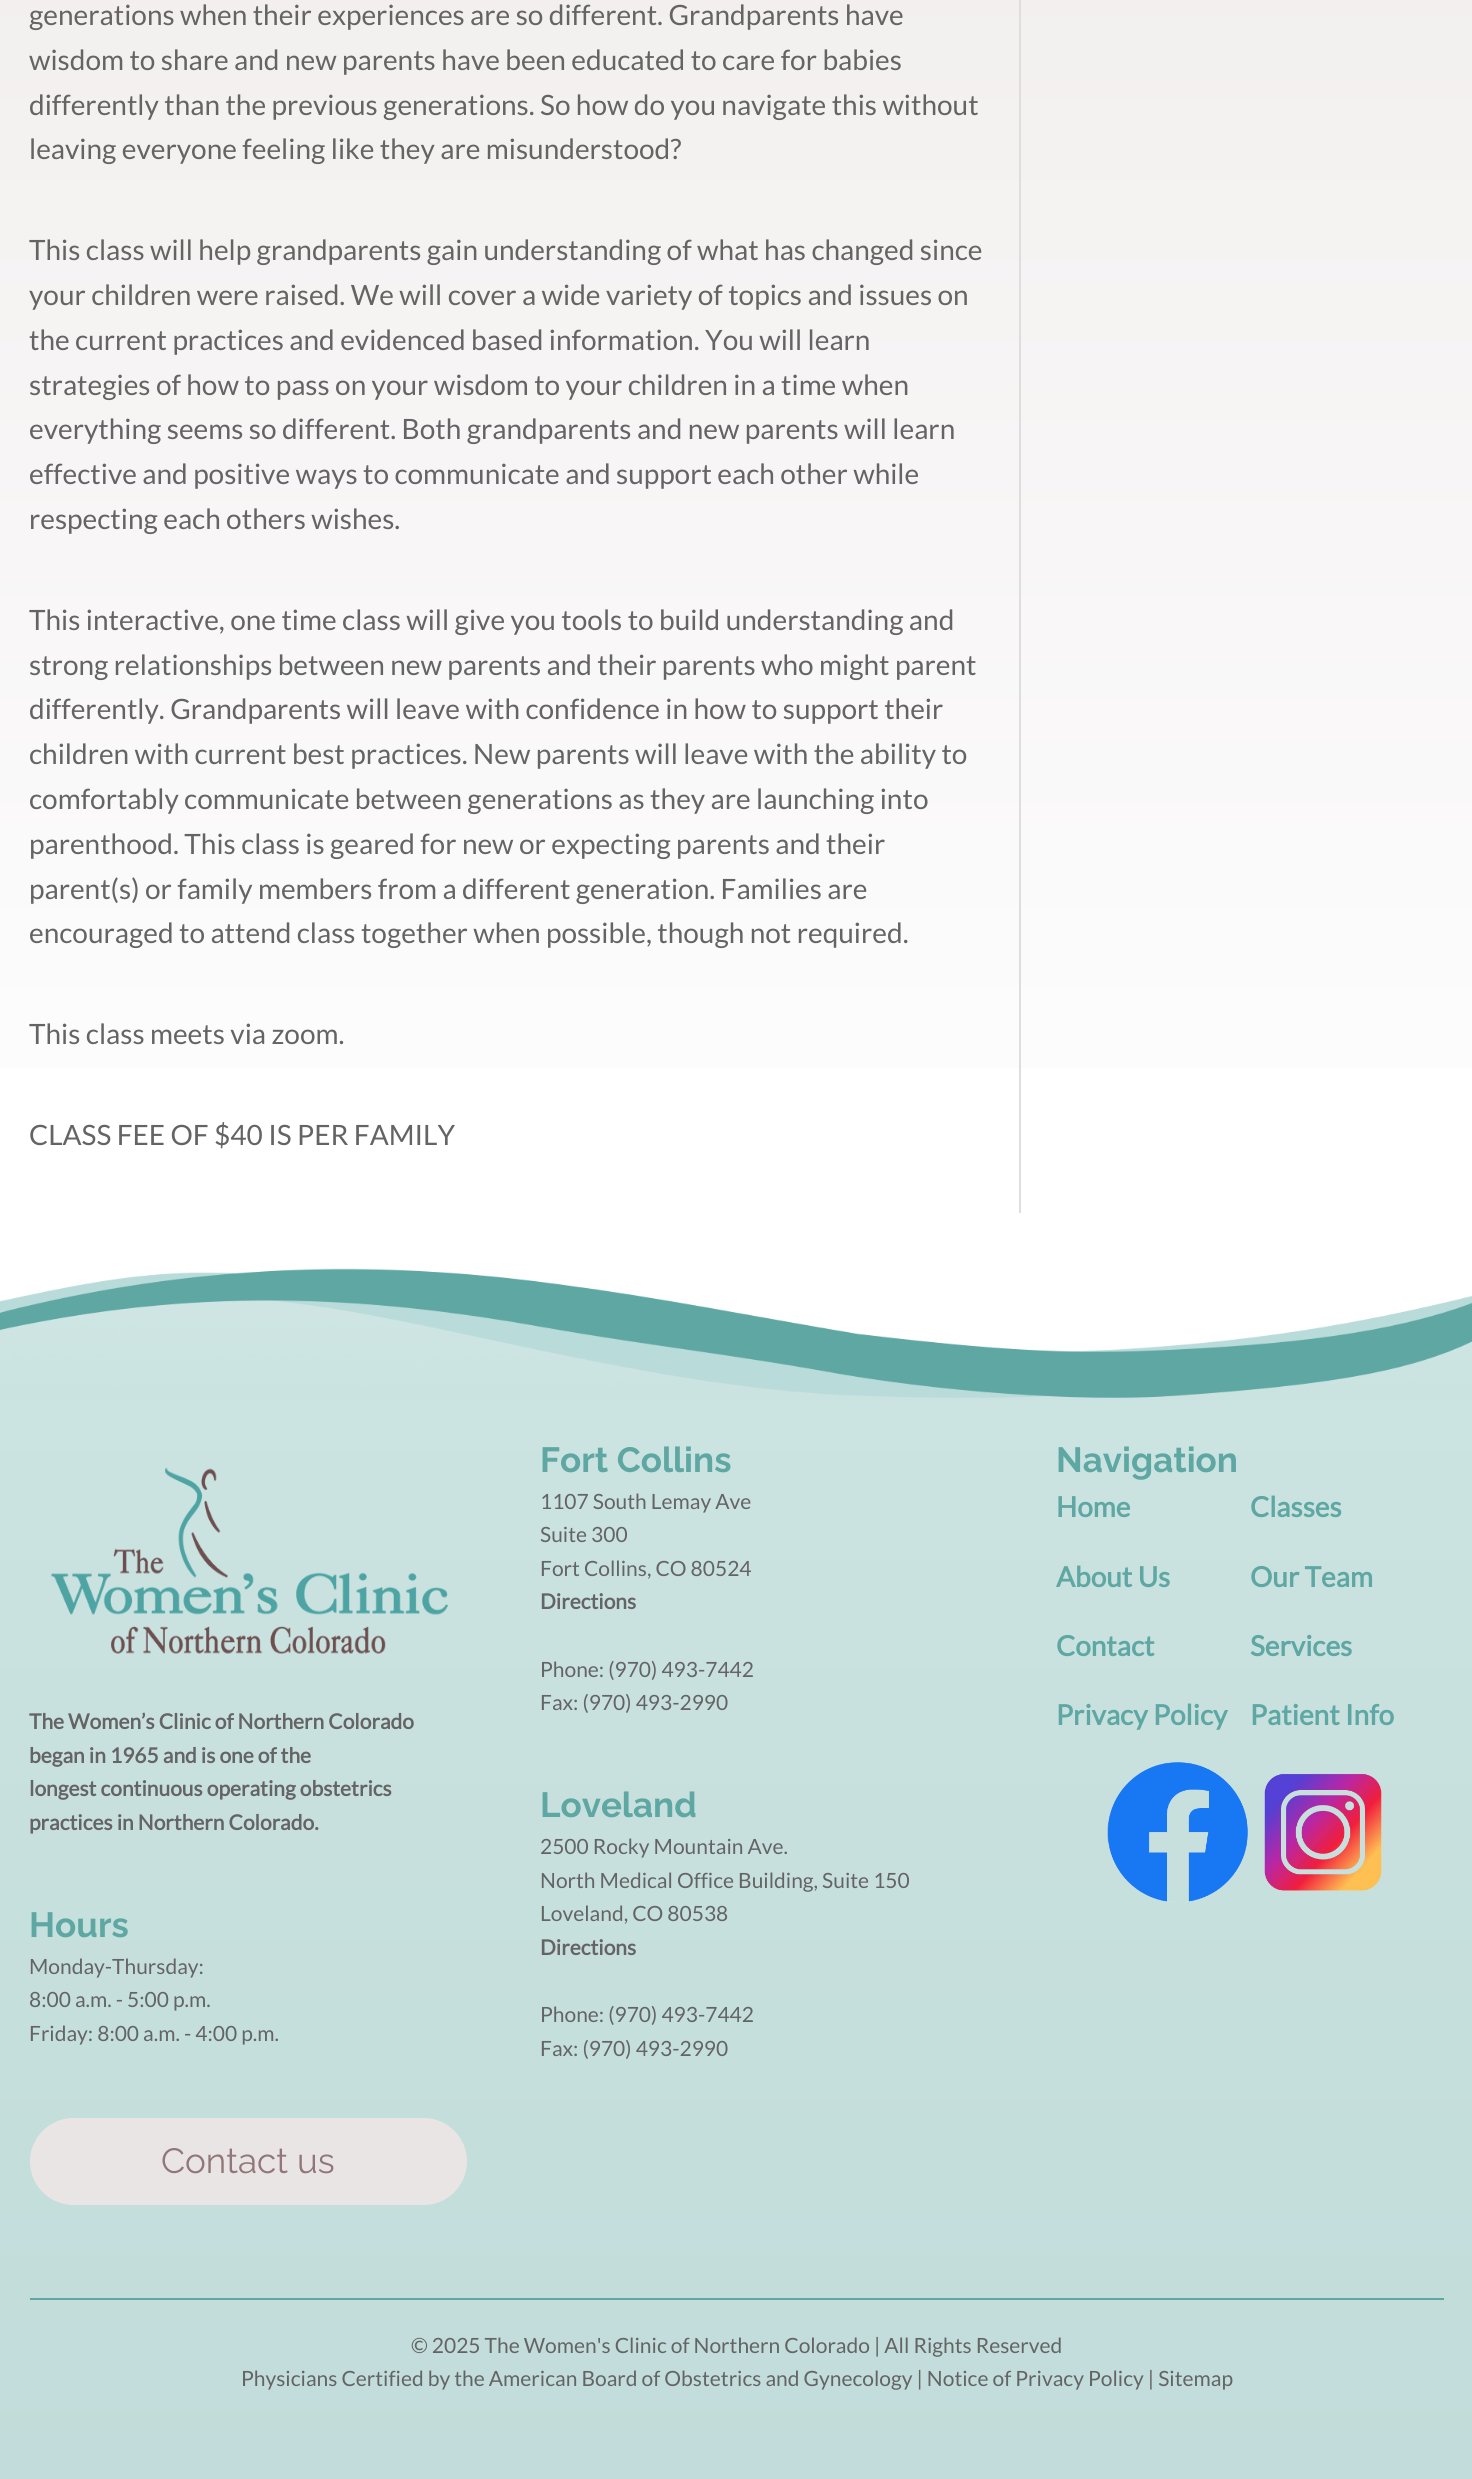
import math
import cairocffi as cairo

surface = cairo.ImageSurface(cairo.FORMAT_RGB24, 1472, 2479)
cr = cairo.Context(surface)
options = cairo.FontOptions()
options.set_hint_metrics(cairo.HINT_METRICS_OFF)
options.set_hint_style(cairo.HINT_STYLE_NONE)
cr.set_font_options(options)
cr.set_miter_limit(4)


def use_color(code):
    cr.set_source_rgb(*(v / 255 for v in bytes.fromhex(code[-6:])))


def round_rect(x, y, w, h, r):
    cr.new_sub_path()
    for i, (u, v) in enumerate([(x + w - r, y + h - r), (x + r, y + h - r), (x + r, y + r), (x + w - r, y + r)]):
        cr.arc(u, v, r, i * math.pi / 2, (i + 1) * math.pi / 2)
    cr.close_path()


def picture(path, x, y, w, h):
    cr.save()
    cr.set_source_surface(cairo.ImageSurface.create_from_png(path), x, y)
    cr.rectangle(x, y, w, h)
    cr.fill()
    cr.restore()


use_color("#ffffff")
cr.paint()
gradient = cairo.LinearGradient(737, -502, 737, 1269)
gradient.add_color_stop_rgba(0, 0.933, 0.914, 0.914, 1)
gradient.add_color_stop_rgba(1, 1, 1, 1, 1)
cr.set_source(gradient)
cr.rectangle(0, 0, 1472, 1068)
cr.fill()
use_color("#dedede")
cr.rectangle(1019, 0, 2, 1213)
cr.fill()
cr.select_font_face("Lato")
cr.set_font_size(28)
use_color("#646464")
cr.move_to(29, 25)
cr.show_text("generations when their experiences are so different. Grandparents have")
cr.move_to(29, 70)
cr.show_text("wisdom to share and new parents have been educated to care for babies")
cr.move_to(29, 115)
cr.show_text("differently than the previous generations. So how do you navigate this without")
cr.move_to(29, 159)
cr.show_text("leaving everyone feeling like they are misunderstood?")
cr.move_to(29, 260)
cr.show_text("This class will help grandparents gain understanding of what has changed since")
cr.move_to(29, 305)
cr.show_text("your children were raised. We will cover a wide variety of topics and issues on")
cr.move_to(29, 350)
cr.show_text("the current practices and evidenced based information. You will learn")
cr.move_to(29, 395)
cr.show_text("strategies of how to pass on your wisdom to your children in a time when")
cr.move_to(29, 439)
cr.show_text("everything seems so different. Both grandparents and new parents will learn")
cr.move_to(29, 484)
cr.show_text("effective and positive ways to communicate and support each other while")
cr.move_to(29, 529)
cr.show_text("respecting each others wishes.")
cr.move_to(29, 630)
cr.show_text("This interactive, one time class will give you tools to build understanding and")
cr.move_to(29, 675)
cr.show_text("strong relationships between new parents and their parents who might parent")
cr.move_to(29, 719)
cr.show_text("differently. Grandparents will leave with confidence in how to support their")
cr.move_to(29, 764)
cr.show_text("children with current best practices. New parents will leave with the ability to")
cr.move_to(29, 809)
cr.show_text("comfortably communicate between generations as they are launching into")
cr.move_to(29, 854)
cr.show_text("parenthood. This class is geared for new or expecting parents and their")
cr.move_to(29, 899)
cr.show_text("parent(s) or family members from a different generation. Families are")
cr.move_to(29, 943)
cr.show_text("encouraged to attend class together when possible, though not required.")
cr.move_to(29, 1044)
cr.show_text("This class meets via zoom.")
cr.move_to(29, 1145)
cr.show_text("CLASS FEE OF $40 IS PER FAMILY")
picture("img1.png", 0, 1268, 1472, 132)
gradient = cairo.LinearGradient(737, 1400, 737, 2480)
gradient.add_color_stop_rgba(0, 0.796, 0.89, 0.882, 1)
gradient.add_color_stop_rgba(1, 0.757, 0.863, 0.855, 1)
cr.set_source(gradient)
cr.rectangle(0, 1400, 1472, 1079)
cr.fill()
cr.select_font_face("Raleway", cairo.FONT_SLANT_NORMAL, cairo.FONT_WEIGHT_BOLD)
cr.set_font_size(35)
use_color("#5ea7a3")
cr.move_to(540, 1472)
cr.show_text("Fort Collins")
cr.select_font_face("Lato")
cr.set_font_size(21)
use_color("#646464")
cr.move_to(540, 1509)
cr.show_text("1107 South Lemay Ave")
cr.move_to(540, 1542)
cr.show_text("Suite 300")
cr.move_to(540, 1576)
cr.show_text("Fort Collins, CO 80524")
cr.select_font_face("Lato", cairo.FONT_SLANT_NORMAL, cairo.FONT_WEIGHT_BOLD)
cr.move_to(540, 1609)
cr.show_text("Directions")
cr.select_font_face("Lato")
cr.move_to(540, 1677)
cr.show_text("Phone: (970) 493-7442")
cr.move_to(540, 1710)
cr.show_text("Fax: (970) 493-2990")
cr.select_font_face("Raleway", cairo.FONT_SLANT_NORMAL, cairo.FONT_WEIGHT_BOLD)
cr.set_font_size(35)
use_color("#5ea7a3")
cr.move_to(540, 1817)
cr.show_text("Loveland")
cr.select_font_face("Lato")
cr.set_font_size(21)
use_color("#646464")
cr.move_to(540, 1854)
cr.show_text("2500 Rocky Mountain Ave.")
cr.move_to(540, 1888)
cr.show_text("North Medical Office Building, Suite 150")
cr.move_to(540, 1921)
cr.show_text("Loveland, CO 80538")
cr.select_font_face("Lato", cairo.FONT_SLANT_NORMAL, cairo.FONT_WEIGHT_BOLD)
cr.move_to(540, 1955)
cr.show_text("Directions")
cr.select_font_face("Lato")
cr.move_to(540, 2022)
cr.show_text("Phone: (970) 493-7442")
cr.move_to(540, 2056)
cr.show_text("Fax: (970) 493-2990")
cr.select_font_face("Raleway", cairo.FONT_SLANT_NORMAL, cairo.FONT_WEIGHT_BOLD)
cr.set_font_size(35)
use_color("#5ea7a3")
cr.move_to(1056, 1472)
cr.show_text("Navigation")
cr.select_font_face("Lato", cairo.FONT_SLANT_NORMAL, cairo.FONT_WEIGHT_BOLD)
cr.set_font_size(28)
cr.move_to(1056, 1517)
cr.show_text("Home")
cr.move_to(1250, 1517)
cr.show_text("Classes")
cr.move_to(1056, 1587)
cr.show_text("About Us")
cr.move_to(1250, 1587)
cr.show_text("Our Team")
cr.move_to(1056, 1656)
cr.show_text("Contact")
cr.move_to(1250, 1656)
cr.show_text("Services")
cr.move_to(1056, 1725)
cr.show_text("Privacy Policy")
cr.move_to(1250, 1725)
cr.show_text("Patient Info")
picture("img2.png", 1107, 1762, 141, 141)
picture("img3.png", 1264, 1773, 118, 118)
picture("img4.png", 51, 1467, 397, 187)
cr.set_font_size(21)
use_color("#646464")
cr.move_to(29, 1729)
cr.show_text("The Women’s Clinic of Northern Colorado")
cr.move_to(29, 1763)
cr.show_text("began in 1965 and is one of the")
cr.move_to(29, 1796)
cr.show_text("longest continuous operating obstetrics")
cr.move_to(29, 1830)
cr.show_text("practices in Northern Colorado.")
cr.select_font_face("Raleway", cairo.FONT_SLANT_NORMAL, cairo.FONT_WEIGHT_BOLD)
cr.set_font_size(35)
use_color("#5ea7a3")
cr.move_to(29, 1937)
cr.show_text("Hours")
cr.select_font_face("Lato")
cr.set_font_size(21)
use_color("#646464")
cr.move_to(29, 1974)
cr.show_text("Monday-Thursday:")
cr.move_to(29, 2007)
cr.show_text("8:00 a.m. - 5:00 p.m.")
cr.move_to(29, 2041)
cr.show_text("Friday: 8:00 a.m. - 4:00 p.m.")
use_color("#eae5e5")
round_rect(30, 2118, 437, 87, 43.5)
cr.fill()
cr.select_font_face("Raleway")
cr.set_font_size(35)
use_color("#917779")
cr.move_to(161, 2173)
cr.show_text("Contact us")
use_color("#5ea7a3")
cr.rectangle(30, 2298, 1414, 2)
cr.fill()
cr.select_font_face("Lato")
cr.set_font_size(21)
use_color("#646464")
cr.move_to(411, 2353)
cr.show_text("© 2025 The Women's Clinic of Northern Colorado | All Rights Reserved")
cr.move_to(241, 2386)
cr.show_text("Physicians Certified by the American Board of Obstetrics and Gynecology | Notice of Privacy Policy | Sitemap")
surface.write_to_png("result.png")
